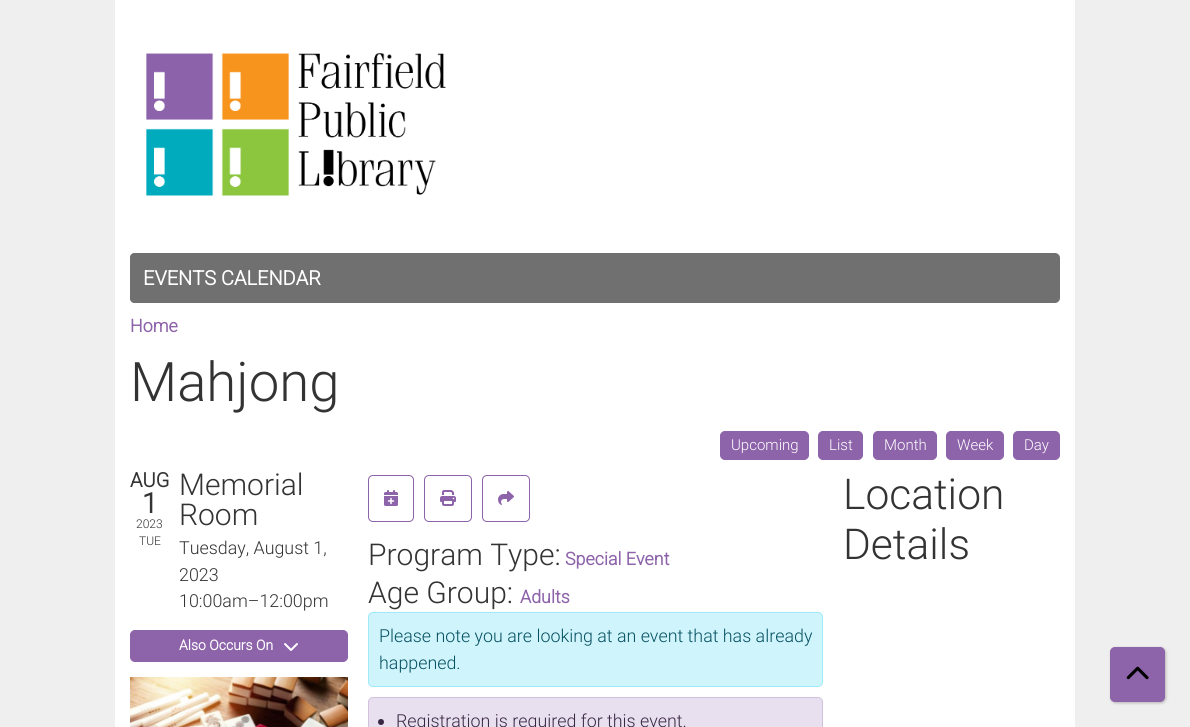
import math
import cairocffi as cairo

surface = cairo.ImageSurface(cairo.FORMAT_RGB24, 1190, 727)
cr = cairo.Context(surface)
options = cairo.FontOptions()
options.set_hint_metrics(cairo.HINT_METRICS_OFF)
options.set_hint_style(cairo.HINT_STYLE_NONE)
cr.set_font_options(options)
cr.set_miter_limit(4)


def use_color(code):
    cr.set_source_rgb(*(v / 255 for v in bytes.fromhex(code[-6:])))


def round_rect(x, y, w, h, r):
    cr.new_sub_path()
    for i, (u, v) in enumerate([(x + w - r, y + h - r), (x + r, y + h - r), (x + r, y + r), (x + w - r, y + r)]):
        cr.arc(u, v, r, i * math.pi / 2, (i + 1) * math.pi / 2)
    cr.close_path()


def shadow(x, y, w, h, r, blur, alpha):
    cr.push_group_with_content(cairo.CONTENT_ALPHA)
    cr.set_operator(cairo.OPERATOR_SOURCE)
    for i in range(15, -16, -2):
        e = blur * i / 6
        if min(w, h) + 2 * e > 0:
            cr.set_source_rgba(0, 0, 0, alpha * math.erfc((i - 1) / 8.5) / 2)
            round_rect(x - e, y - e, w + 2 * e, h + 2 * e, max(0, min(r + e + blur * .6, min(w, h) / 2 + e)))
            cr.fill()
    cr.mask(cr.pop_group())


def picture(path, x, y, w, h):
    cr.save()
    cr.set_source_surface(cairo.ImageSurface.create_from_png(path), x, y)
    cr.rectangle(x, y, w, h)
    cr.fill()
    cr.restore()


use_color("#efefef")
cr.paint()
use_color("#ffffff")
cr.rectangle(115, 0, 960, 727)
cr.fill()
picture("img1.png", 146, 53, 300, 143)
use_color("#707070")
round_rect(130, 253, 930, 50, 5)
cr.fill()
cr.new_path()
cr.move_to(135, 253)
cr.line_to(333, 253)
cr.line_to(333, 303)
cr.line_to(135, 303)
cr.curve_to(132, 303, 130, 301, 130, 298)
cr.line_to(130, 258)
cr.curve_to(130, 255, 132, 253, 135, 253)
cr.close_path()
cr.fill()
cr.select_font_face("Roboto", cairo.FONT_SLANT_NORMAL, cairo.FONT_WEIGHT_BOLD)
cr.set_font_size(20)
use_color("#ffffff")
cr.move_to(143, 285)
cr.show_text("EVENTS CALENDAR")
cr.set_font_size(17.85)
use_color("#8d63aa")
cr.move_to(130, 332)
cr.show_text("Home")
cr.select_font_face("Roboto Light")
cr.set_font_size(54.5)
use_color("#333333")
cr.move_to(130, 401)
cr.show_text("Mahjong")
use_color("#8d63aa")
round_rect(720.5, 431.5, 88, 28, 4.5)
cr.fill_preserve()
cr.set_line_width(1)
cr.stroke()
cr.set_font_size(15)
use_color("#ffffff")
cr.move_to(731, 450)
cr.show_text("Upcoming")
use_color("#8d63aa")
round_rect(818.5, 431.5, 44, 28, 4.5)
cr.fill_preserve()
cr.stroke()
use_color("#ffffff")
cr.move_to(829, 450)
cr.show_text("List")
use_color("#8d63aa")
round_rect(873.5, 431.5, 63, 28, 4.5)
cr.fill_preserve()
cr.stroke()
use_color("#ffffff")
cr.move_to(884, 450)
cr.show_text("Month")
use_color("#8d63aa")
round_rect(946.5, 431.5, 57, 28, 4.5)
cr.fill_preserve()
cr.stroke()
use_color("#ffffff")
cr.move_to(957, 450)
cr.show_text("Week")
use_color("#8d63aa")
round_rect(1013.5, 431.5, 46, 28, 4.5)
cr.fill_preserve()
cr.stroke()
use_color("#ffffff")
cr.move_to(1024, 450)
cr.show_text("Day")
cr.select_font_face("Roboto", cairo.FONT_SLANT_NORMAL, cairo.FONT_WEIGHT_BOLD)
cr.set_font_size(20)
use_color("#333333")
cr.move_to(130, 487)
cr.show_text("AUG")
cr.set_font_size(28)
cr.move_to(142, 513)
cr.show_text("1")
cr.select_font_face("Roboto Light")
cr.set_font_size(12)
cr.move_to(136, 528)
cr.show_text("2023")
cr.move_to(139, 545)
cr.show_text("TUE")
cr.set_font_size(30)
cr.move_to(179, 495)
cr.show_text("Memorial")
cr.move_to(179, 525)
cr.show_text("Room")
cr.set_font_size(17.85)
cr.move_to(179, 554)
cr.show_text("Tuesday, August 1,")
cr.move_to(179, 581)
cr.show_text("2023")
cr.move_to(179, 607)
cr.show_text("10:00am–12:00pm")
use_color("#8d63aa")
round_rect(130.5, 630.5, 217, 31, 4.5)
cr.fill_preserve()
cr.stroke()
cr.select_font_face("Roboto", cairo.FONT_SLANT_NORMAL, cairo.FONT_WEIGHT_BOLD)
cr.set_font_size(14)
use_color("#ffffff")
cr.move_to(179, 650)
cr.show_text("Also Occurs On")
picture("img2.png", 284, 643, 14, 8)
picture("img3.png", 130, 677, 218, 50)
cr.select_font_face("Roboto Light")
cr.set_font_size(42.5)
use_color("#333333")
cr.move_to(843, 509)
cr.show_text("Location")
cr.move_to(843, 559)
cr.show_text("Details")
round_rect(368.5, 475.5, 45, 46, 4.5)
use_color("#8d63aa")
cr.stroke()
picture("img4.png", 384, 490, 14, 16)
round_rect(424.5, 475.5, 47, 46, 4.5)
cr.stroke()
picture("img5.png", 440, 490, 16, 16)
round_rect(482.5, 475.5, 47, 46, 4.5)
cr.stroke()
picture("img6.png", 498, 491, 16, 14)
cr.set_font_size(30)
use_color("#333333")
cr.move_to(368, 565)
cr.show_text("Program Type:")
cr.select_font_face("Roboto", cairo.FONT_SLANT_NORMAL, cairo.FONT_WEIGHT_BOLD)
cr.set_font_size(17.85)
use_color("#8d63aa")
cr.move_to(565, 565)
cr.show_text("Special Event")
cr.select_font_face("Roboto Light")
cr.set_font_size(30)
use_color("#333333")
cr.move_to(368, 603)
cr.show_text("Age Group:")
cr.select_font_face("Roboto", cairo.FONT_SLANT_NORMAL, cairo.FONT_WEIGHT_BOLD)
cr.set_font_size(17.85)
use_color("#8d63aa")
cr.move_to(520, 603)
cr.show_text("Adults")
use_color("#cff4fc")
round_rect(368.5, 612.5, 454, 74, 4.5)
cr.fill_preserve()
use_color("#9eeaf9")
cr.stroke()
cr.select_font_face("Roboto Light")
use_color("#055160")
cr.move_to(379, 642)
cr.show_text("Please note you are looking at an event that has already")
cr.move_to(379, 669)
cr.show_text("happened.")
use_color("#e8e0ee")
round_rect(368.5, 697.5, 454, 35, 4.5)
cr.fill_preserve()
use_color("#d1c1dd")
cr.stroke()
use_color("#382844")
cr.arc(381, 722, 3, 0, 2 * math.pi)
cr.fill()
cr.move_to(396, 727)
cr.show_text("Registration is required for this event.")
use_color("#000000")
shadow(1111, 648, 55, 55, 5, 1.5, 0.25)
use_color("#8d63aa")
round_rect(1110.5, 647.5, 54, 54, 4.5)
cr.fill_preserve()
cr.stroke()
picture("img7.png", 1126, 666, 23, 14)
surface.write_to_png("result.png")
